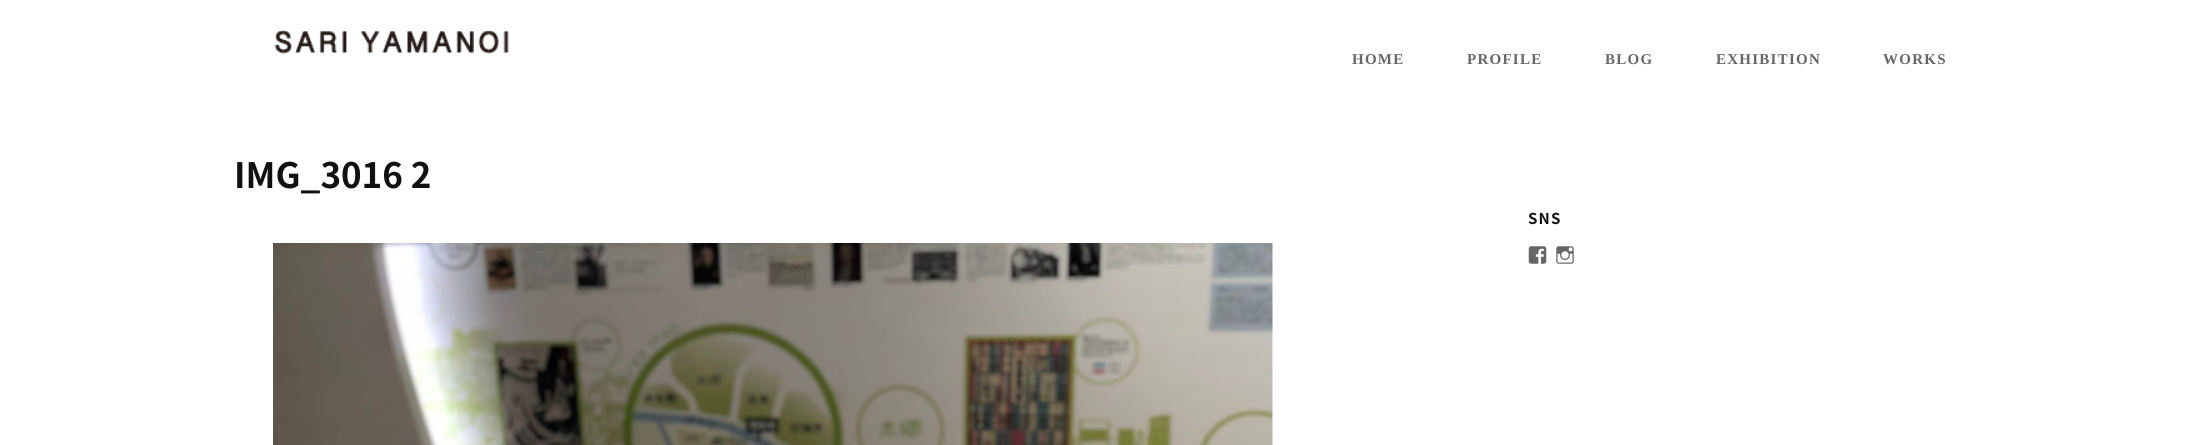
import math
import cairocffi as cairo

surface = cairo.ImageSurface(cairo.FORMAT_RGB24, 2193, 445)
cr = cairo.Context(surface)
options = cairo.FontOptions()
options.set_hint_metrics(cairo.HINT_METRICS_OFF)
options.set_hint_style(cairo.HINT_STYLE_NONE)
cr.set_font_options(options)
cr.set_miter_limit(4)


def use_color(code):
    cr.set_source_rgb(*(v / 255 for v in bytes.fromhex(code[-6:])))


def spaced_text(x, y, s, letter, word):
    cr.move_to(x, y)
    for ch in s:
        cr.show_text(ch)
        cr.rel_move_to(letter + word * (ch == ' '), 0)


def picture(path, x, y, w, h):
    cr.save()
    cr.set_source_surface(cairo.ImageSurface.create_from_png(path), x, y)
    cr.rectangle(x, y, w, h)
    cr.fill()
    cr.restore()


use_color("#ffffff")
cr.paint()
picture("img1.png", 274, 30, 235, 24)
cr.select_font_face("Liberation Serif", cairo.FONT_SLANT_NORMAL, cairo.FONT_WEIGHT_BOLD)
cr.set_font_size(15)
use_color("#666666")
spaced_text(1352, 64, "HOME", 1.25, 0)
spaced_text(1467, 64, "PROFILE", 1.25, 0)
spaced_text(1605, 64, "BLOG", 1.25, 0)
spaced_text(1716, 64, "EXHIBITION", 1.25, 0)
spaced_text(1883, 64, "WORKS", 1.25, 0)
cr.select_font_face("Noto Sans JP", cairo.FONT_SLANT_NORMAL, cairo.FONT_WEIGHT_BOLD)
cr.set_font_size(35)
use_color("#111111")
cr.move_to(234, 188)
cr.show_text("IMG_3016 2")
picture("img2.png", 273, 243, 1000, 202)
cr.set_font_size(15)
spaced_text(1528, 224, "SNS", 1.25, 0)
picture("img3.png", 1528, 246, 19, 18)
picture("img4.png", 1556, 246, 18, 18)
surface.write_to_png("result.png")
